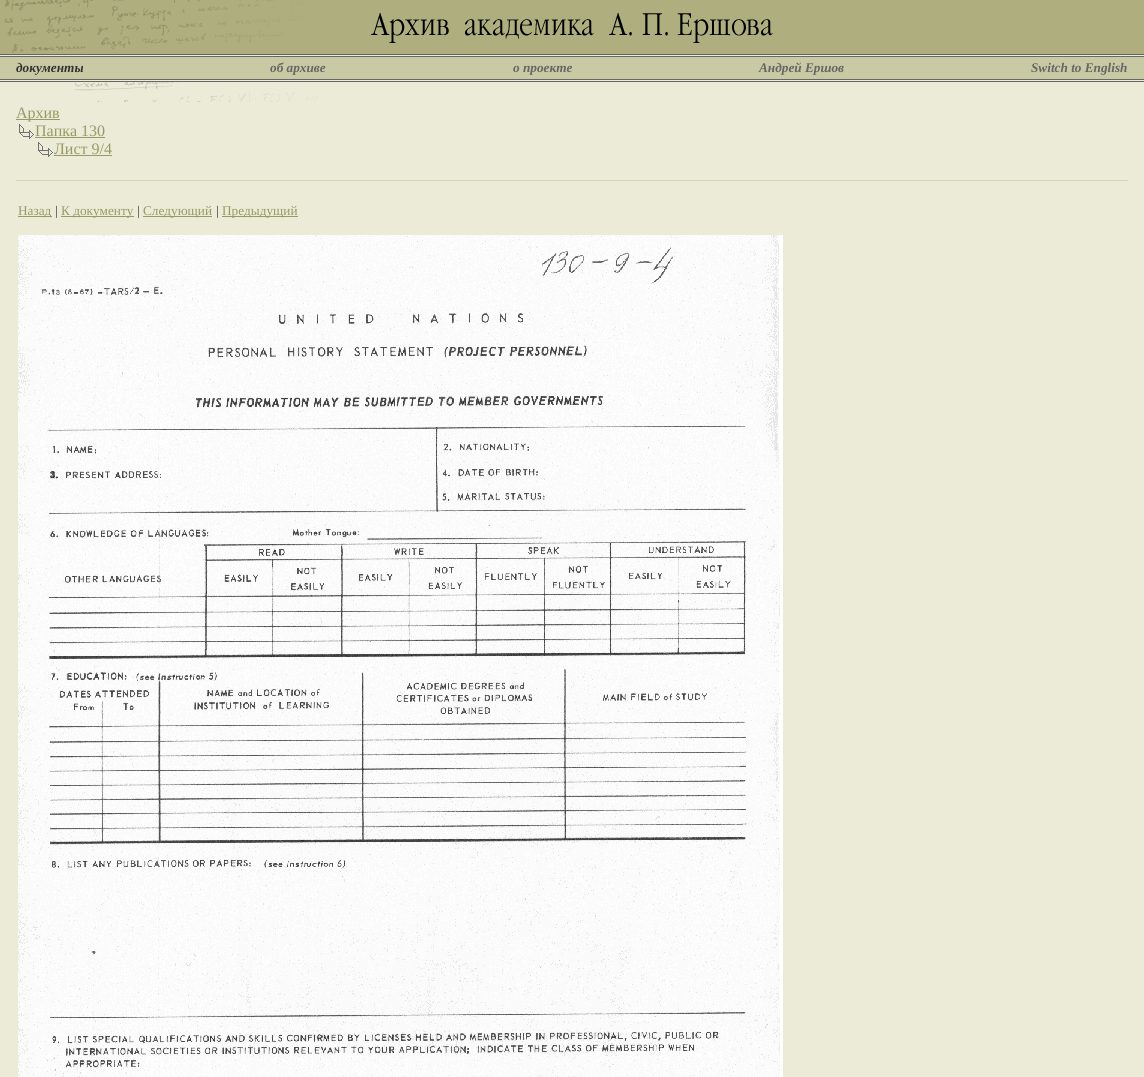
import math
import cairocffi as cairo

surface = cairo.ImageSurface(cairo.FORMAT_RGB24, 1144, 1077)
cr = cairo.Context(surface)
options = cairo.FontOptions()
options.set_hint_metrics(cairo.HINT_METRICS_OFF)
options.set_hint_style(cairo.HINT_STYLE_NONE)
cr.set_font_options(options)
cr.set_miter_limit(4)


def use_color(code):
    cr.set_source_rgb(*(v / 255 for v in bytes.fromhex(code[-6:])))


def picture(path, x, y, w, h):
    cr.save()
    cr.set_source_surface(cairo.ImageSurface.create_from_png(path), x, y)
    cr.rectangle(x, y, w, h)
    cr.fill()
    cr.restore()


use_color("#ebebd7")
cr.paint()
picture("img1.png", 0, 0, 1144, 54)
picture("img2.png", 371, 12, 402, 31)
use_color("#666666")
cr.rectangle(0, 54, 1144, 1)
cr.fill()
cr.rectangle(0, 56, 1144, 1)
cr.fill()
use_color("#c9c9a3")
cr.rectangle(0, 57, 1144, 22)
cr.fill()
cr.select_font_face("Liberation Serif", cairo.FONT_SLANT_ITALIC, cairo.FONT_WEIGHT_BOLD)
cr.set_font_size(13.25)
use_color("#333333")
cr.move_to(16, 72)
cr.show_text("документы")
use_color("#666666")
cr.move_to(270, 72)
cr.show_text("об архиве")
cr.move_to(513, 72)
cr.show_text("о проекте")
cr.move_to(759, 72)
cr.show_text("Андрей Ершов")
cr.move_to(1031, 72)
cr.show_text("Switch to English")
cr.rectangle(0, 79, 1144, 1)
cr.fill()
cr.rectangle(0, 81, 1144, 1)
cr.fill()
picture("img3.png", 75, 82, 248, 20)
use_color("#999966")
cr.rectangle(16, 119, 44, 1)
cr.fill()
cr.select_font_face("Liberation Serif")
cr.set_font_size(16)
cr.move_to(16, 118)
cr.show_text("Архив")
picture("img4.png", 19, 124, 15, 15)
cr.move_to(35, 136)
cr.show_text("Папка 130")
cr.rectangle(35, 137, 70, 1)
cr.fill()
picture("img4.png", 38, 142, 15, 15)
cr.move_to(54, 154)
cr.show_text("Лист 9/4")
cr.rectangle(54, 155, 58, 1)
cr.fill()
use_color("#d7d7af")
cr.rectangle(16, 180, 1112, 1)
cr.fill()
use_color("#999966")
cr.rectangle(18, 216, 34, 1)
cr.fill()
cr.set_font_size(13.25)
cr.move_to(18, 215)
cr.show_text("Назад")
use_color("#333333")
cr.move_to(55, 215)
cr.show_text("|")
use_color("#999966")
cr.rectangle(61, 216, 73, 1)
cr.fill()
cr.move_to(61, 215)
cr.show_text("К документу")
use_color("#333333")
cr.move_to(137, 215)
cr.show_text("|")
use_color("#999966")
cr.rectangle(143, 216, 69, 1)
cr.fill()
cr.move_to(143, 215)
cr.show_text("Следующий")
use_color("#333333")
cr.move_to(216, 215)
cr.show_text("|")
use_color("#999966")
cr.rectangle(222, 216, 76, 1)
cr.fill()
cr.move_to(222, 215)
cr.show_text("Предыдущий")
picture("img5.png", 18, 235, 765, 842)
surface.write_to_png("result.png")
